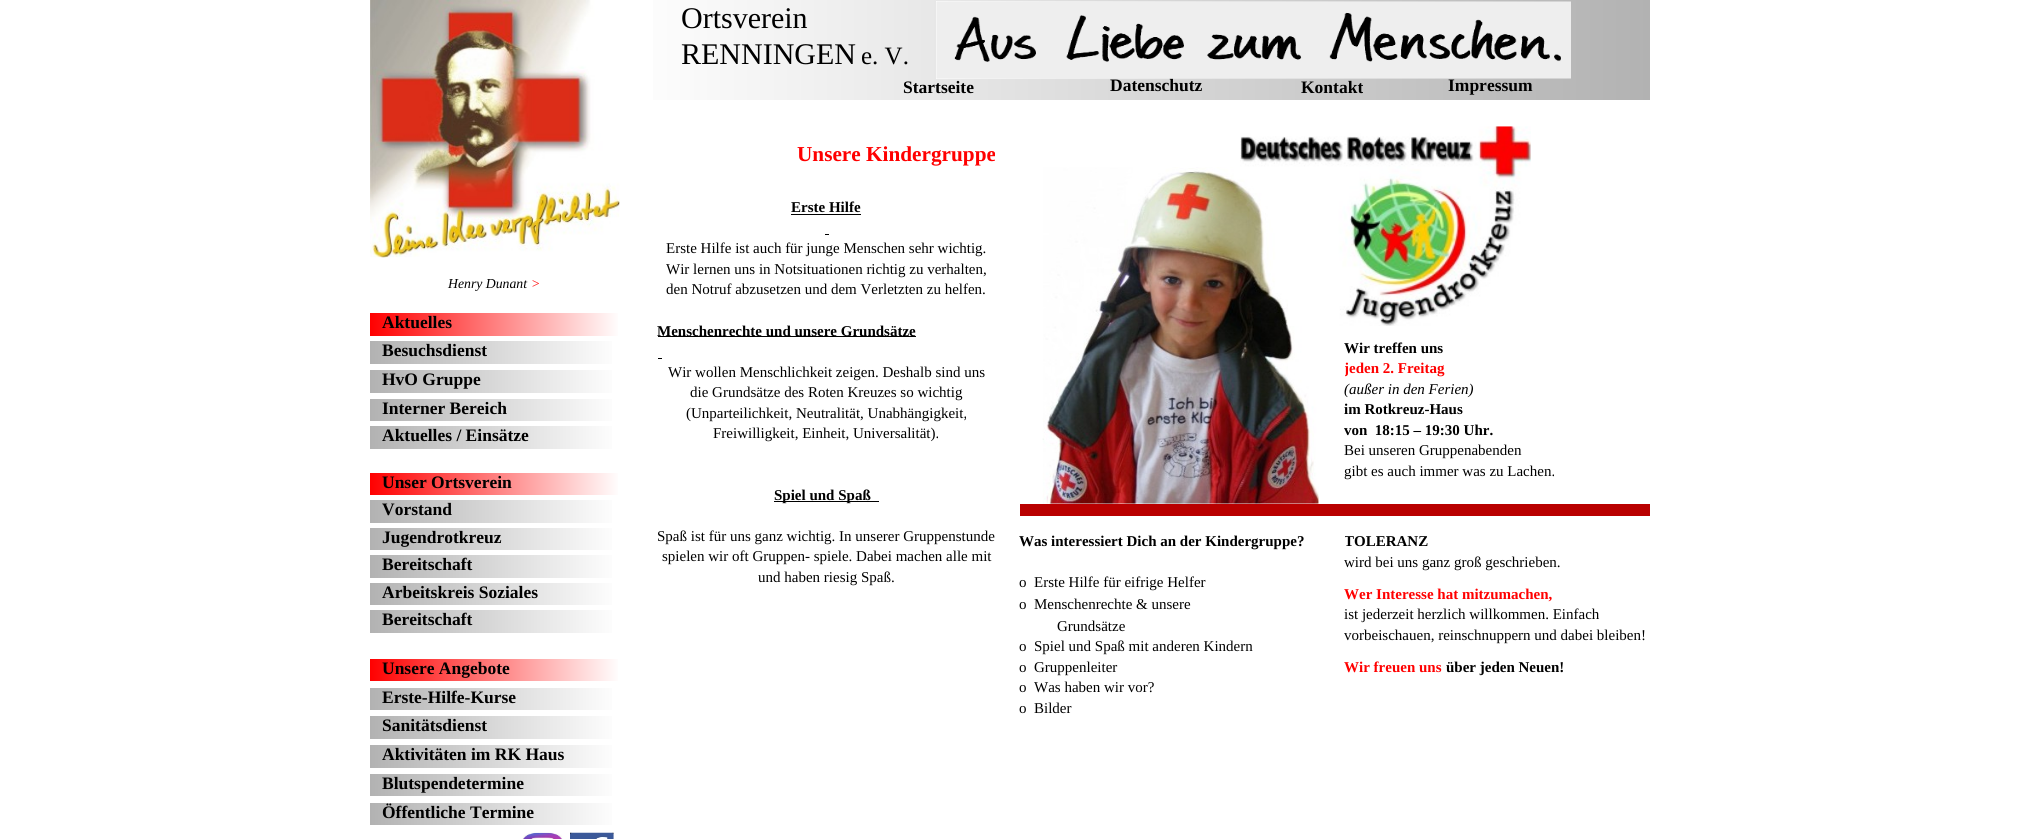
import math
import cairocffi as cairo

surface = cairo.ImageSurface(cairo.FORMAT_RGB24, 2018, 839)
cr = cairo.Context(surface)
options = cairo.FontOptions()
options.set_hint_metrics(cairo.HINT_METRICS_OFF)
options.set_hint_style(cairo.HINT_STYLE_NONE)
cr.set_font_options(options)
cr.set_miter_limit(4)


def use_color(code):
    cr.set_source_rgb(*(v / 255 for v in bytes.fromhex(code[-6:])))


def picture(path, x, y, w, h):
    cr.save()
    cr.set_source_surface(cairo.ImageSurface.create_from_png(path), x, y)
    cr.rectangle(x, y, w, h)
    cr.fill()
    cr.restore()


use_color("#ffffff")
cr.paint()
gradient = cairo.LinearGradient(620, 50, 1650, 50)
gradient.add_color_stop_rgba(0, 1, 1, 1, 1)
gradient.add_color_stop_rgba(1, 0.698, 0.698, 0.698, 1)
cr.set_source(gradient)
cr.rectangle(653, 0, 997, 100)
cr.fill()
cr.select_font_face("Liberation Serif")
cr.set_font_size(30)
use_color("#000000")
cr.move_to(681, 28)
cr.show_text("Ortsverein")
cr.move_to(681, 64)
cr.show_text("RENNINGEN")
cr.set_font_size(25)
cr.move_to(861, 64)
cr.show_text("e. V.")
gradient = cairo.LinearGradient(936, 40, 1571, 40)
gradient.add_color_stop_rgba(0, 1, 1, 1, 1)
gradient.add_color_stop_rgba(1, 0.698, 0.698, 0.698, 1)
cr.set_source(gradient)
cr.rectangle(936, 1, 635, 78)
cr.fill()
picture("img1.png", 936, 1, 635, 78)
cr.select_font_face("Liberation Serif", cairo.FONT_SLANT_NORMAL, cairo.FONT_WEIGHT_BOLD)
cr.set_font_size(17.5)
use_color("#000000")
cr.move_to(903, 93)
cr.show_text("Startseite")
cr.move_to(1110, 91)
cr.show_text("Datenschutz")
cr.move_to(1301, 93)
cr.show_text("Kontakt")
cr.move_to(1448, 91)
cr.show_text("Impressum")
picture("img2.png", 370, 0, 250, 258)
cr.select_font_face("Liberation Serif", cairo.FONT_SLANT_ITALIC)
cr.set_font_size(13.75)
cr.move_to(448, 288)
cr.show_text("Henry Dunant")
use_color("#ff0000")
cr.move_to(531, 288)
cr.show_text(">")
gradient = cairo.LinearGradient(370, 324, 620, 324)
gradient.add_color_stop_rgba(0, 1, 0, 0, 1)
gradient.add_color_stop_rgba(1, 1, 1, 1, 1)
cr.set_source(gradient)
cr.rectangle(370, 313, 248, 23)
cr.fill()
cr.select_font_face("Liberation Serif", cairo.FONT_SLANT_NORMAL, cairo.FONT_WEIGHT_BOLD)
cr.set_font_size(17.5)
use_color("#000000")
cr.move_to(382, 328)
cr.show_text("Aktuelles")
gradient = cairo.LinearGradient(370, 353, 620, 353)
gradient.add_color_stop_rgba(0, 0.698, 0.698, 0.698, 1)
gradient.add_color_stop_rgba(1, 1, 1, 1, 1)
cr.set_source(gradient)
cr.rectangle(370, 341, 242, 23)
cr.fill()
use_color("#000000")
cr.move_to(382, 356)
cr.show_text("Besuchsdienst")
gradient = cairo.LinearGradient(370, 381, 620, 381)
gradient.add_color_stop_rgba(0, 0.698, 0.698, 0.698, 1)
gradient.add_color_stop_rgba(1, 1, 1, 1, 1)
cr.set_source(gradient)
cr.rectangle(370, 370, 242, 23)
cr.fill()
use_color("#000000")
cr.move_to(382, 385)
cr.show_text("HvO Gruppe")
gradient = cairo.LinearGradient(370, 410, 620, 410)
gradient.add_color_stop_rgba(0, 0.698, 0.698, 0.698, 1)
gradient.add_color_stop_rgba(1, 1, 1, 1, 1)
cr.set_source(gradient)
cr.rectangle(370, 399, 242, 22)
cr.fill()
use_color("#000000")
cr.move_to(382, 414)
cr.show_text("Interner Bereich")
gradient = cairo.LinearGradient(370, 438, 620, 438)
gradient.add_color_stop_rgba(0, 0.698, 0.698, 0.698, 1)
gradient.add_color_stop_rgba(1, 1, 1, 1, 1)
cr.set_source(gradient)
cr.rectangle(370, 426, 242, 23)
cr.fill()
use_color("#000000")
cr.move_to(382, 441)
cr.show_text("Aktuelles / Einsätze")
gradient = cairo.LinearGradient(370, 484, 620, 484)
gradient.add_color_stop_rgba(0, 1, 0, 0, 1)
gradient.add_color_stop_rgba(1, 1, 1, 1, 1)
cr.set_source(gradient)
cr.rectangle(370, 473, 248, 22)
cr.fill()
use_color("#000000")
cr.move_to(382, 488)
cr.show_text("Unser Ortsverein")
gradient = cairo.LinearGradient(370, 511, 620, 511)
gradient.add_color_stop_rgba(0, 0.698, 0.698, 0.698, 1)
gradient.add_color_stop_rgba(1, 1, 1, 1, 1)
cr.set_source(gradient)
cr.rectangle(370, 500, 242, 23)
cr.fill()
use_color("#000000")
cr.move_to(382, 515)
cr.show_text("Vorstand")
gradient = cairo.LinearGradient(370, 539, 620, 539)
gradient.add_color_stop_rgba(0, 0.698, 0.698, 0.698, 1)
gradient.add_color_stop_rgba(1, 1, 1, 1, 1)
cr.set_source(gradient)
cr.rectangle(370, 528, 242, 22)
cr.fill()
use_color("#000000")
cr.move_to(382, 543)
cr.show_text("Jugendrotkreuz")
gradient = cairo.LinearGradient(370, 566, 620, 566)
gradient.add_color_stop_rgba(0, 0.698, 0.698, 0.698, 1)
gradient.add_color_stop_rgba(1, 1, 1, 1, 1)
cr.set_source(gradient)
cr.rectangle(370, 555, 242, 23)
cr.fill()
use_color("#000000")
cr.move_to(382, 570)
cr.show_text("Bereitschaft")
gradient = cairo.LinearGradient(370, 594, 620, 594)
gradient.add_color_stop_rgba(0, 0.698, 0.698, 0.698, 1)
gradient.add_color_stop_rgba(1, 1, 1, 1, 1)
cr.set_source(gradient)
cr.rectangle(370, 583, 242, 22)
cr.fill()
use_color("#000000")
cr.move_to(382, 598)
cr.show_text("Arbeitskreis Soziales")
gradient = cairo.LinearGradient(370, 621, 620, 621)
gradient.add_color_stop_rgba(0, 0.698, 0.698, 0.698, 1)
gradient.add_color_stop_rgba(1, 1, 1, 1, 1)
cr.set_source(gradient)
cr.rectangle(370, 610, 242, 23)
cr.fill()
use_color("#000000")
cr.move_to(382, 625)
cr.show_text("Bereitschaft")
gradient = cairo.LinearGradient(370, 670, 620, 670)
gradient.add_color_stop_rgba(0, 1, 0, 0, 1)
gradient.add_color_stop_rgba(1, 1, 1, 1, 1)
cr.set_source(gradient)
cr.rectangle(370, 659, 248, 22)
cr.fill()
use_color("#000000")
cr.move_to(382, 674)
cr.show_text("Unsere Angebote")
gradient = cairo.LinearGradient(370, 699, 620, 699)
gradient.add_color_stop_rgba(0, 0.698, 0.698, 0.698, 1)
gradient.add_color_stop_rgba(1, 1, 1, 1, 1)
cr.set_source(gradient)
cr.rectangle(370, 688, 242, 22)
cr.fill()
use_color("#000000")
cr.move_to(382, 703)
cr.show_text("Erste-Hilfe-Kurse")
gradient = cairo.LinearGradient(370, 728, 620, 728)
gradient.add_color_stop_rgba(0, 0.698, 0.698, 0.698, 1)
gradient.add_color_stop_rgba(1, 1, 1, 1, 1)
cr.set_source(gradient)
cr.rectangle(370, 716, 242, 23)
cr.fill()
use_color("#000000")
cr.move_to(382, 731)
cr.show_text("Sanitätsdienst")
gradient = cairo.LinearGradient(370, 756, 620, 756)
gradient.add_color_stop_rgba(0, 0.698, 0.698, 0.698, 1)
gradient.add_color_stop_rgba(1, 1, 1, 1, 1)
cr.set_source(gradient)
cr.rectangle(370, 745, 242, 23)
cr.fill()
use_color("#000000")
cr.move_to(382, 760)
cr.show_text("Aktivitäten im RK Haus")
gradient = cairo.LinearGradient(370, 785, 620, 785)
gradient.add_color_stop_rgba(0, 0.698, 0.698, 0.698, 1)
gradient.add_color_stop_rgba(1, 1, 1, 1, 1)
cr.set_source(gradient)
cr.rectangle(370, 774, 242, 22)
cr.fill()
use_color("#000000")
cr.move_to(382, 789)
cr.show_text("Blutspendetermine")
gradient = cairo.LinearGradient(370, 814, 620, 814)
gradient.add_color_stop_rgba(0, 0.698, 0.698, 0.698, 1)
gradient.add_color_stop_rgba(1, 1, 1, 1, 1)
cr.set_source(gradient)
cr.rectangle(370, 803, 242, 22)
cr.fill()
use_color("#000000")
cr.move_to(382, 818)
cr.show_text("Öffentliche Termine")
picture("img3.png", 522, 832, 41, 7)
picture("img4.png", 570, 832, 44, 7)
cr.set_font_size(21.25)
use_color("#ff0000")
cr.move_to(797, 161)
cr.show_text("Unsere Kindergruppe")
cr.set_font_size(15)
use_color("#000000")
cr.move_to(791, 212)
cr.show_text("Erste Hilfe")
cr.rectangle(791, 214, 70, 1)
cr.fill()
cr.rectangle(825, 234, 4, 1)
cr.fill()
cr.select_font_face("Liberation Serif")
cr.move_to(666, 253)
cr.show_text("Erste Hilfe ist auch für junge Menschen sehr wichtig.")
cr.move_to(666, 274)
cr.show_text("Wir lernen uns in Notsituationen richtig zu verhalten,")
cr.move_to(666, 294)
cr.show_text("den Notruf abzusetzen und dem Verletzten zu helfen.")
cr.rectangle(658, 336, 258, 1)
cr.fill()
cr.select_font_face("Liberation Serif", cairo.FONT_SLANT_NORMAL, cairo.FONT_WEIGHT_BOLD)
cr.move_to(657, 336)
cr.show_text("Menschenrechte und unsere Grundsätze")
cr.rectangle(658, 358, 4, 1)
cr.fill()
cr.select_font_face("Liberation Serif")
cr.move_to(668, 377)
cr.show_text("Wir wollen Menschlichkeit zeigen. Deshalb sind uns")
cr.move_to(690, 397)
cr.show_text("die Grundsätze des Roten Kreuzes so wichtig")
cr.move_to(686, 418)
cr.show_text("(Unparteilichkeit, Neutralität, Unabhängigkeit,")
cr.move_to(713, 438)
cr.show_text("Freiwilligkeit, Einheit, Universalität).")
cr.rectangle(774, 501, 105, 1)
cr.fill()
cr.select_font_face("Liberation Serif", cairo.FONT_SLANT_NORMAL, cairo.FONT_WEIGHT_BOLD)
cr.move_to(774, 500)
cr.show_text("Spiel und Spaß")
cr.select_font_face("Liberation Serif")
cr.move_to(657, 541)
cr.show_text("Spaß ist für uns ganz wichtig. In unserer Gruppenstunde")
cr.move_to(662, 561)
cr.show_text("spielen wir oft Gruppen- spiele. Dabei machen alle mit")
cr.move_to(758, 582)
cr.show_text("und haben riesig Spaß.")
picture("img6.png", 1240, 126, 291, 200)
picture("img5.png", 1042, 167, 277, 337)
cr.select_font_face("Liberation Serif", cairo.FONT_SLANT_NORMAL, cairo.FONT_WEIGHT_BOLD)
cr.move_to(1344, 353)
cr.show_text("Wir treffen uns")
cr.save()
cr.rectangle(1345, 338, 305, 152)
cr.clip()
use_color("#ff0000")
cr.move_to(1344, 373)
cr.show_text("jeden 2. Freitag")
cr.restore()
cr.select_font_face("Liberation Serif", cairo.FONT_SLANT_ITALIC)
cr.move_to(1344, 394)
cr.show_text("(außer in den Ferien)")
cr.select_font_face("Liberation Serif", cairo.FONT_SLANT_NORMAL, cairo.FONT_WEIGHT_BOLD)
cr.move_to(1344, 414)
cr.show_text("im Rotkreuz-Haus")
cr.move_to(1344, 435)
cr.show_text("von  18:15 – 19:30 Uhr.")
cr.select_font_face("Liberation Serif")
cr.move_to(1344, 455)
cr.show_text("Bei unseren Gruppenabenden")
cr.move_to(1344, 476)
cr.show_text("gibt es auch immer was zu Lachen.")
use_color("#b90000")
cr.rectangle(1020, 504, 630, 12)
cr.fill()
cr.select_font_face("Liberation Serif", cairo.FONT_SLANT_NORMAL, cairo.FONT_WEIGHT_BOLD)
use_color("#000000")
cr.move_to(1019, 546)
cr.show_text("Was interessiert Dich an der Kindergruppe?")
cr.select_font_face("Liberation Serif")
cr.move_to(1019, 587)
cr.show_text("o  Erste Hilfe für eifrige Helfer")
cr.move_to(1019, 609)
cr.show_text("o  Menschenrechte & unsere")
cr.move_to(1057, 631)
cr.show_text("Grundsätze")
cr.move_to(1019, 651)
cr.show_text("o  Spiel und Spaß mit anderen Kindern")
cr.move_to(1019, 672)
cr.show_text("o  Gruppenleiter")
cr.move_to(1019, 692)
cr.show_text("o  Was haben wir vor?")
cr.move_to(1019, 713)
cr.show_text("o  Bilder")
cr.save()
cr.rectangle(1345, 531, 305, 177)
cr.clip()
cr.select_font_face("Liberation Serif", cairo.FONT_SLANT_NORMAL, cairo.FONT_WEIGHT_BOLD)
cr.move_to(1344, 546)
cr.show_text("TOLERANZ")
cr.restore()
cr.move_to(1344, 567)
cr.show_text("wird bei uns ganz groß geschrieben.")
cr.select_font_face("Liberation Serif", cairo.FONT_SLANT_NORMAL, cairo.FONT_WEIGHT_BOLD)
use_color("#ff0000")
cr.move_to(1344, 599)
cr.show_text("Wer Interesse hat mitzumachen,")
cr.select_font_face("Liberation Serif")
use_color("#000000")
cr.move_to(1344, 619)
cr.show_text("ist jederzeit herzlich willkommen. Einfach")
cr.move_to(1344, 640)
cr.show_text("vorbeischauen, reinschnuppern und dabei bleiben!")
cr.select_font_face("Liberation Serif", cairo.FONT_SLANT_NORMAL, cairo.FONT_WEIGHT_BOLD)
use_color("#ff0000")
cr.move_to(1344, 672)
cr.show_text("Wir freuen uns")
use_color("#000000")
cr.move_to(1446, 672)
cr.show_text("über jeden Neuen!")
surface.write_to_png("result.png")
